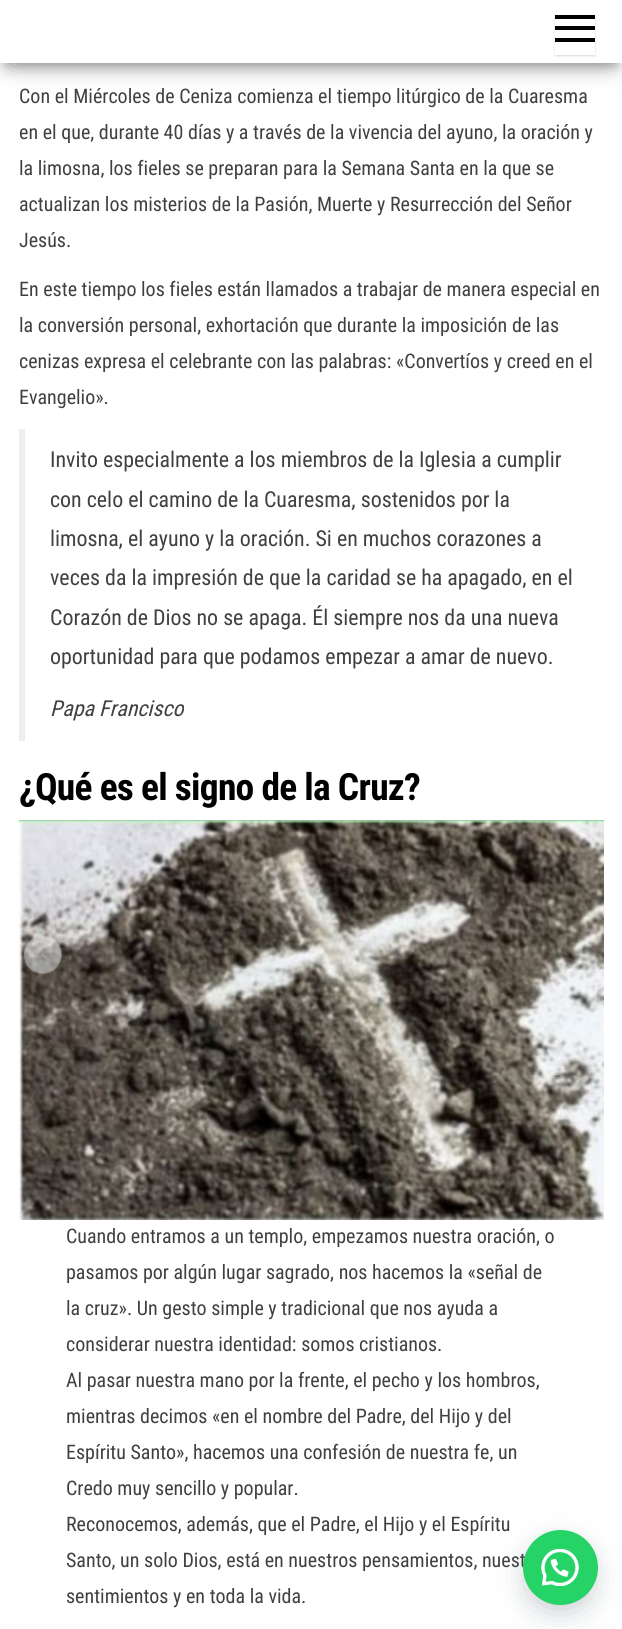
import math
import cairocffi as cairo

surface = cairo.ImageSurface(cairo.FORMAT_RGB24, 622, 1629)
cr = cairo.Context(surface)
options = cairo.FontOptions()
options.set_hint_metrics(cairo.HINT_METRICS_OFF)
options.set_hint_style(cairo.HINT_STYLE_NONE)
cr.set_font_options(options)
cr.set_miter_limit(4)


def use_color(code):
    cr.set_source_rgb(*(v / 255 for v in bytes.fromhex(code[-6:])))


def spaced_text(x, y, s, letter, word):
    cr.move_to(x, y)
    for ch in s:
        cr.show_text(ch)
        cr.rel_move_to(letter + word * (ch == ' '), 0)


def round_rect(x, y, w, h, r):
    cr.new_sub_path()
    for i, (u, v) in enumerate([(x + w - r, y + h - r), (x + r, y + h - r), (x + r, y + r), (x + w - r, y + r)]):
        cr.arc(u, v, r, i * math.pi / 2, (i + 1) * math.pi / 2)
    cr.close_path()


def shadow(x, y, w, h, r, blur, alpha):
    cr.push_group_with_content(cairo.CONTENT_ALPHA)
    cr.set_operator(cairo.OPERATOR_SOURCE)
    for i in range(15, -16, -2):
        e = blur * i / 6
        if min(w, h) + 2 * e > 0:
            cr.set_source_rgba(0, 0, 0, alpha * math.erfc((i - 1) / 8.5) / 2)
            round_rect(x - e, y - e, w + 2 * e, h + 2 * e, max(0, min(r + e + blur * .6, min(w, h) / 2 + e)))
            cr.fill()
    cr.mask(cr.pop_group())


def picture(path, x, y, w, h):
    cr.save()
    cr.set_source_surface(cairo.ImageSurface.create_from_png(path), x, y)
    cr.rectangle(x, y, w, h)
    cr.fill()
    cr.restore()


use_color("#ffffff")
cr.paint()
use_color("#000000")
shadow(6, 16, 610, 50, 0, 6, 0.2)
shadow(0, 4, 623, 62, 0, 12.5, 0.12)
shadow(15, 28, 593, 32, 0, 12.5, 0.42)
use_color("#ffffff")
cr.rectangle(0, 0, 622, 63)
cr.fill()
cr.save()
cr.set_fill_rule(cairo.FILL_RULE_EVEN_ODD)
cr.new_path()
cr.move_to(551, 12)
cr.line_to(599, 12)
cr.line_to(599, 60)
cr.line_to(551, 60)
cr.close_path()
cr.move_to(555, 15)
cr.line_to(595, 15)
cr.line_to(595, 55)
cr.line_to(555, 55)
cr.close_path()
cr.clip()
use_color("#000000")
shadow(555, 16, 40, 40, 0, 1, 0.15)
cr.restore()
use_color("#000000")
cr.rectangle(555, 15, 40, 4)
cr.fill()
cr.rectangle(555, 26, 40, 4)
cr.fill()
cr.rectangle(555, 38, 40, 4)
cr.fill()
cr.select_font_face("Roboto Condensed")
cr.set_font_size(20)
use_color("#404040")
cr.move_to(19, 103)
cr.show_text("Con el Miércoles de Ceniza comienza el tiempo litúrgico de la Cuaresma")
cr.move_to(19, 139)
cr.show_text("en el que, durante 40 días y a través de la vivencia del ayuno, la oración y")
cr.move_to(19, 175)
cr.show_text("la limosna, los fieles se preparan para la Semana Santa en la que se")
cr.move_to(19, 211)
cr.show_text("actualizan los misterios de la Pasión, Muerte y Resurrección del Señor")
cr.move_to(19, 247)
cr.show_text("Jesús.")
cr.move_to(19, 296)
cr.show_text("En este tiempo los fieles están llamados a trabajar de manera especial en")
cr.move_to(19, 332)
cr.show_text("la conversión personal, exhortación que durante la imposición de las")
cr.move_to(19, 368)
cr.show_text("cenizas expresa el celebrante con las palabras: «Convertíos y creed en el")
cr.move_to(19, 404)
cr.show_text("Evangelio».")
use_color("#eeeeee")
cr.rectangle(19, 429, 6, 312)
cr.fill()
cr.set_font_size(21.9)
use_color("#404040")
cr.move_to(50, 467)
cr.show_text("Invito especialmente a los miembros de la Iglesia a cumplir")
cr.move_to(50, 507)
cr.show_text("con celo el camino de la Cuaresma, sostenidos por la")
cr.move_to(50, 546)
cr.show_text("limosna, el ayuno y la oración. Si en muchos corazones a")
cr.move_to(50, 585)
cr.show_text("veces da la impresión de que la caridad se ha apagado, en el")
cr.move_to(50, 625)
cr.show_text("Corazón de Dios no se apaga. Él siempre nos da una nueva")
cr.move_to(50, 664)
cr.show_text("oportunidad para que podamos empezar a amar de nuevo.")
cr.select_font_face("Roboto Condensed", cairo.FONT_SLANT_ITALIC)
cr.move_to(50, 716)
cr.show_text("Papa Francisco")
cr.select_font_face("Roboto Condensed", cairo.FONT_SLANT_NORMAL, cairo.FONT_WEIGHT_BOLD)
cr.set_font_size(37.5)
use_color("#000000")
spaced_text(19, 800, "¿Qué es el signo de la Cruz?", -0.75, 0)
picture("img1.png", 19, 820, 585, 400)
cr.select_font_face("Roboto Condensed")
cr.set_font_size(20)
use_color("#404040")
cr.move_to(66, 1243)
cr.show_text("Cuando entramos a un templo, empezamos nuestra oración, o")
cr.move_to(66, 1279)
cr.show_text("pasamos por algún lugar sagrado, nos hacemos la «señal de")
cr.move_to(66, 1315)
cr.show_text("la cruz». Un gesto simple y tradicional que nos ayuda a")
cr.move_to(66, 1351)
cr.show_text("considerar nuestra identidad: somos cristianos.")
cr.move_to(66, 1387)
cr.show_text("Al pasar nuestra mano por la frente, el pecho y los hombros,")
cr.move_to(66, 1423)
cr.show_text("mientras decimos «en el nombre del Padre, del Hijo y del")
cr.move_to(66, 1459)
cr.show_text("Espíritu Santo», hacemos una confesión de nuestra fe, un")
cr.move_to(66, 1495)
cr.show_text("Credo muy sencillo y popular.")
cr.move_to(66, 1531)
cr.show_text("Reconocemos, además, que el Padre, el Hijo y el Espíritu")
cr.move_to(66, 1567)
cr.show_text("Santo, un solo Dios, está en nuestros pensamientos, nuest")
cr.move_to(66, 1603)
cr.show_text("sentimientos y en toda la vida.")
use_color("#2d3e4f")
shadow(529, 1546, 62, 63, 31, 15.5, 0.3)
use_color("#25d366")
cr.arc(560.5, 1567.5, 37.5, 0, 2 * math.pi)
cr.fill()
picture("img2.png", 541, 1549, 38, 37)
surface.write_to_png("result.png")
